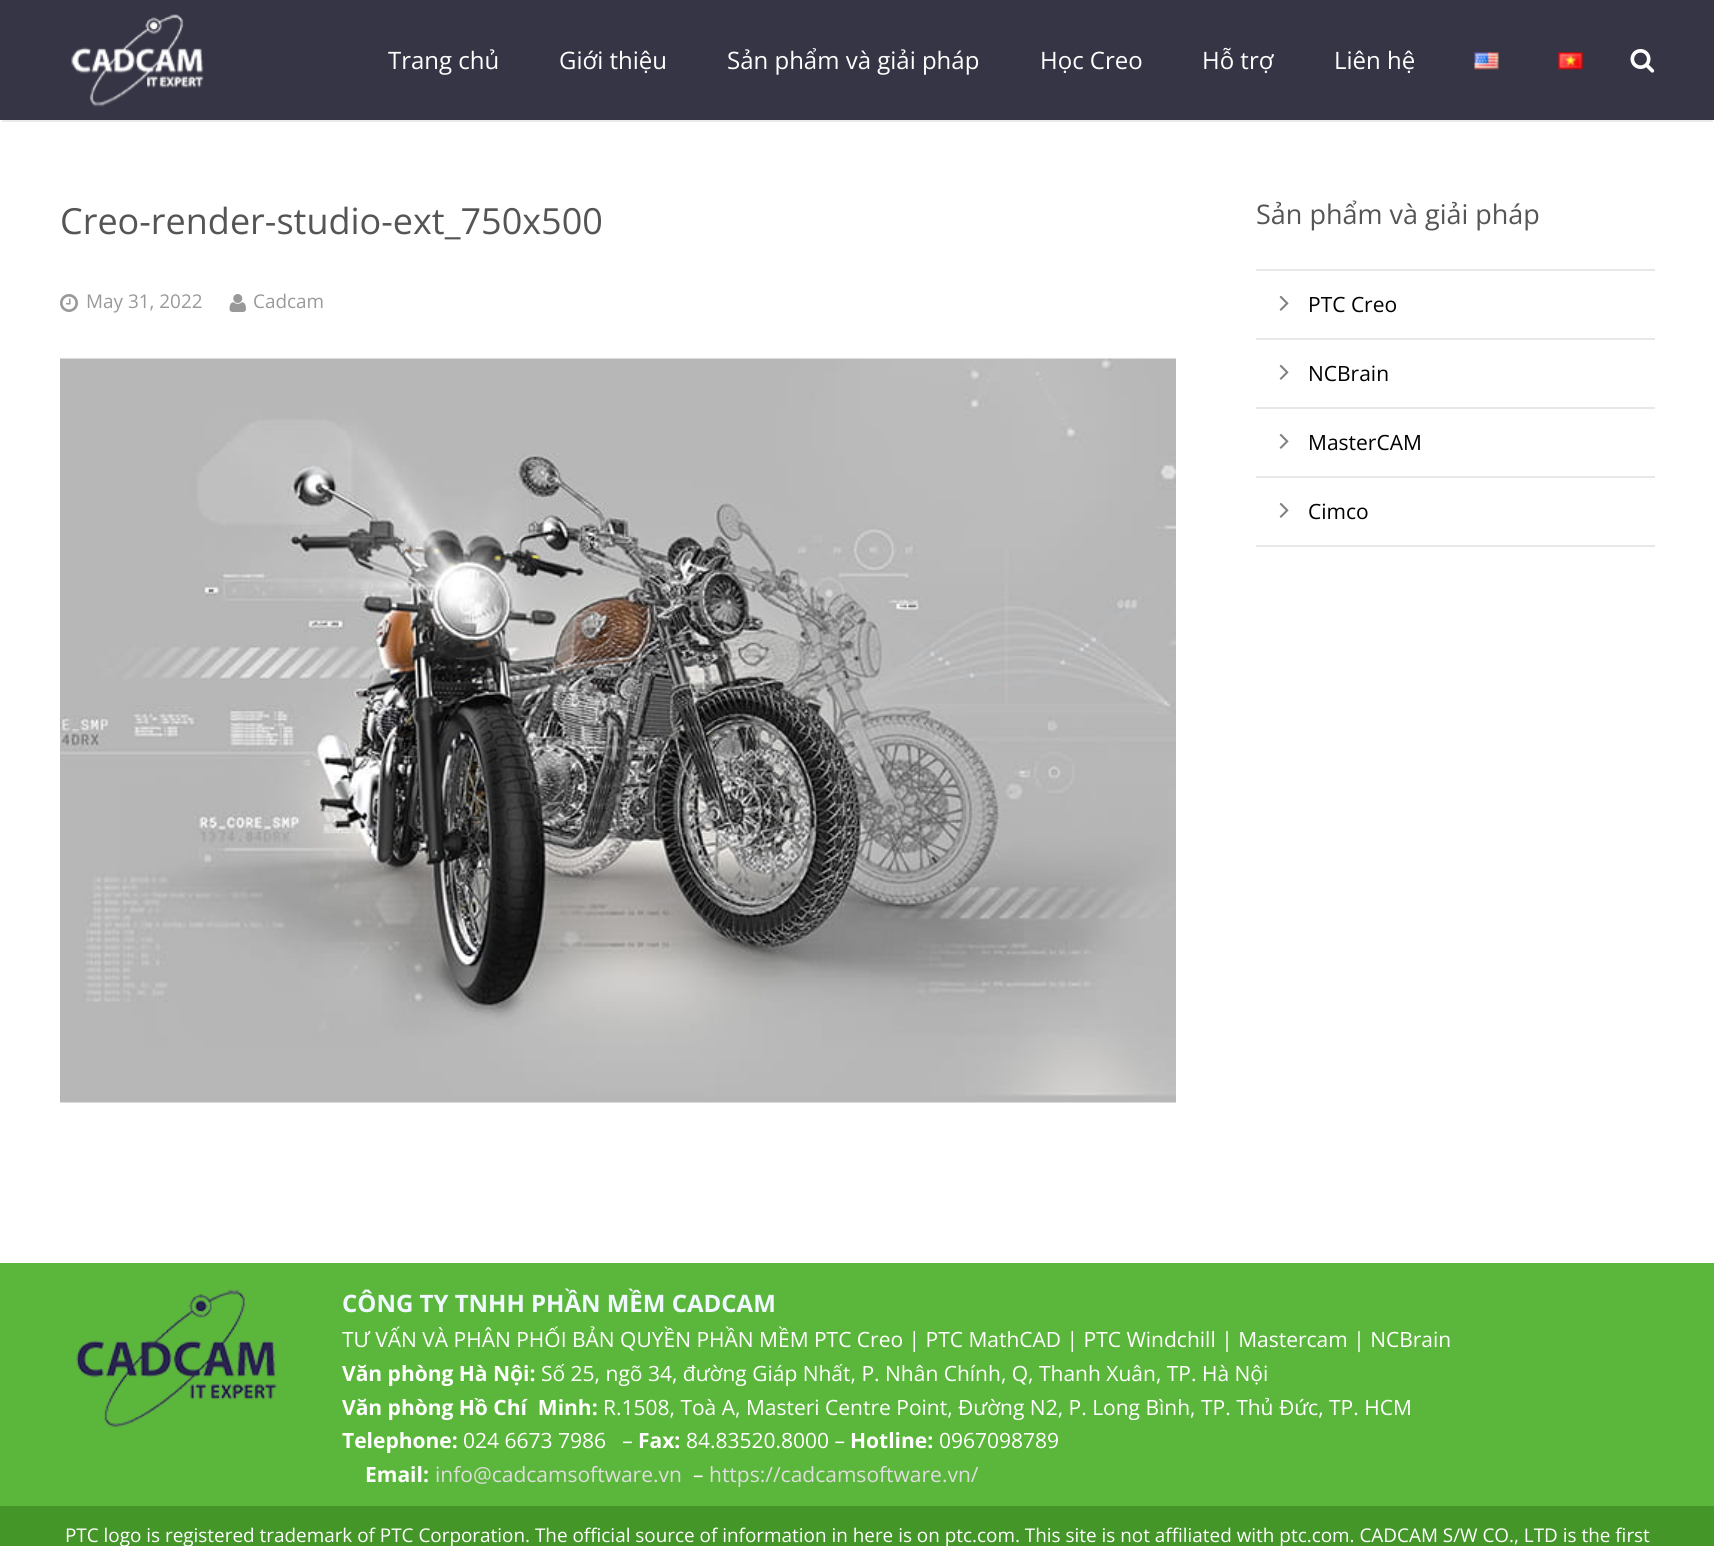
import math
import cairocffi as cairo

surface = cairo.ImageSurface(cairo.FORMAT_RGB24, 1714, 1546)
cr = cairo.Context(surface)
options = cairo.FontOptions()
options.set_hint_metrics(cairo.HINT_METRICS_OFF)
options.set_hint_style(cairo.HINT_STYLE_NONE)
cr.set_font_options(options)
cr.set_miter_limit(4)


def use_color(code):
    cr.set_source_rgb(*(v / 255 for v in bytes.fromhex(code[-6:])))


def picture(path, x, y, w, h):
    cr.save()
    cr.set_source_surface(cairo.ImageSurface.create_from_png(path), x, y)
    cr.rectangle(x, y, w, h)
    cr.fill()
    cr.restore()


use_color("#ffffff")
cr.paint()
use_color("#ebebeb")
cr.rectangle(2, 120, 1711, 2)
cr.fill()
use_color("#363545")
cr.rectangle(0, 0, 1714, 120)
cr.fill()
picture("img1.png", 71, 14, 133, 93)
cr.select_font_face("Open Sans")
cr.set_font_size(24)
use_color("#ffffff")
cr.move_to(388, 69)
cr.show_text("Trang chủ")
cr.move_to(559, 69)
cr.show_text("Giới thiệu")
cr.move_to(727, 69)
cr.show_text("Sản phẩm và giải pháp")
cr.move_to(1040, 69)
cr.show_text("Học Creo")
cr.move_to(1202, 69)
cr.show_text("Hỗ trợ")
cr.move_to(1334, 69)
cr.show_text("Liên hệ")
picture("img2.png", 1474, 52, 25, 18)
picture("img3.png", 1558, 52, 25, 18)
picture("img4.png", 1630, 49, 25, 24)
cr.set_font_size(36)
use_color("#555555")
cr.move_to(60, 234)
cr.show_text("Creo-render-studio-ext_750x500")
picture("img5.png", 60, 294, 18, 18)
cr.set_font_size(18.9)
use_color("#999999")
cr.move_to(86, 308)
cr.show_text("May 31, 2022")
picture("img6.png", 229, 294, 17, 18)
cr.move_to(253, 308)
cr.show_text("Cadcam")
picture("img7.png", 60, 358, 1116, 745)
cr.set_font_size(27)
use_color("#555555")
cr.move_to(1256, 224)
cr.show_text("Sản phẩm và giải pháp")
use_color("#e8e8e8")
cr.rectangle(1256, 545, 399, 2)
cr.fill()
cr.rectangle(1256, 269, 399, 2)
cr.fill()
picture("img8.png", 1279, 295, 10, 16)
cr.set_font_size(21)
use_color("#000000")
cr.move_to(1308, 312)
cr.show_text("PTC Creo")
use_color("#e8e8e8")
cr.rectangle(1256, 338, 399, 2)
cr.fill()
picture("img8.png", 1279, 364, 10, 16)
use_color("#000000")
cr.move_to(1308, 381)
cr.show_text("NCBrain")
use_color("#e8e8e8")
cr.rectangle(1256, 407, 399, 2)
cr.fill()
picture("img8.png", 1279, 433, 10, 16)
use_color("#000000")
cr.move_to(1308, 450)
cr.show_text("MasterCAM")
use_color("#e8e8e8")
cr.rectangle(1256, 476, 399, 2)
cr.fill()
picture("img8.png", 1279, 502, 10, 16)
use_color("#000000")
cr.move_to(1308, 519)
cr.show_text("Cimco")
use_color("#5bb73b")
cr.rectangle(0, 1263, 1714, 243)
cr.fill()
picture("img9.png", 76, 1289, 201, 138)
cr.select_font_face("Open Sans", cairo.FONT_SLANT_NORMAL, cairo.FONT_WEIGHT_BOLD)
cr.set_font_size(24)
use_color("#f0f8ff")
cr.move_to(342, 1312)
cr.show_text("CÔNG TY TNHH PHẦN MỀM CADCAM")
cr.select_font_face("Open Sans")
cr.set_font_size(21)
use_color("#ffffff")
cr.move_to(342, 1347)
cr.show_text("TƯ VẤN VÀ PHÂN PHỐI BẢN QUYỀN PHẦN MỀM PTC Creo | PTC MathCAD | PTC Windchill | Mastercam | NCBrain")
cr.select_font_face("Open Sans", cairo.FONT_SLANT_NORMAL, cairo.FONT_WEIGHT_BOLD)
cr.move_to(342, 1381)
cr.show_text("Văn phòng Hà Nội:")
cr.select_font_face("Open Sans")
cr.move_to(541, 1381)
cr.show_text("Số 25, ngõ 34, đường Giáp Nhất, P. Nhân Chính, Q, Thanh Xuân, TP. Hà Nội")
cr.select_font_face("Open Sans", cairo.FONT_SLANT_NORMAL, cairo.FONT_WEIGHT_BOLD)
cr.move_to(342, 1415)
cr.show_text("Văn phòng Hồ Chí  Minh:")
cr.select_font_face("Open Sans")
cr.move_to(603, 1415)
cr.show_text("R.1508, Toà A, Masteri Centre Point, Đường N2, P. Long Bình, TP. Thủ Đức, TP. HCM")
cr.select_font_face("Open Sans", cairo.FONT_SLANT_NORMAL, cairo.FONT_WEIGHT_BOLD)
cr.move_to(342, 1448)
cr.show_text("Telephone:")
cr.select_font_face("Open Sans")
cr.move_to(463, 1448)
cr.show_text("024 6673 7986   –")
cr.select_font_face("Open Sans", cairo.FONT_SLANT_NORMAL, cairo.FONT_WEIGHT_BOLD)
cr.move_to(638, 1448)
cr.show_text("Fax:")
cr.select_font_face("Open Sans")
cr.move_to(686, 1448)
cr.show_text("84.83520.8000 –")
cr.select_font_face("Open Sans", cairo.FONT_SLANT_NORMAL, cairo.FONT_WEIGHT_BOLD)
cr.move_to(850, 1448)
cr.show_text("Hotline:")
cr.select_font_face("Open Sans")
cr.move_to(939, 1448)
cr.show_text("0967098789")
cr.select_font_face("Open Sans", cairo.FONT_SLANT_NORMAL, cairo.FONT_WEIGHT_BOLD)
cr.move_to(365, 1482)
cr.show_text("Email:")
cr.select_font_face("Open Sans")
use_color("#dddddd")
cr.move_to(435, 1482)
cr.show_text("info@cadcamsoftware.vn")
use_color("#ffffff")
cr.move_to(693, 1482)
cr.show_text("–")
use_color("#dddddd")
cr.move_to(709, 1482)
cr.show_text("https://cadcamsoftware.vn/")
use_color("#449629")
cr.rectangle(0, 1506, 1714, 40)
cr.fill()
cr.set_font_size(18.9)
use_color("#ffffff")
cr.move_to(65, 1542)
cr.show_text("PTC logo is registered trademark of PTC Corporation. The official source of information in here is on ptc.com. This site is not affiliated with ptc.com. CADCAM S/W CO., LTD is the first")
surface.write_to_png("result.png")
